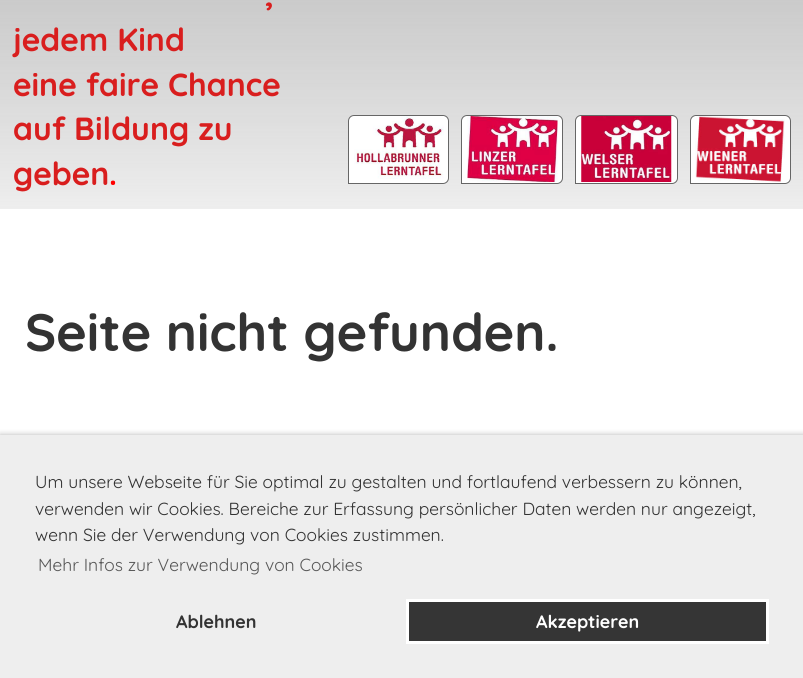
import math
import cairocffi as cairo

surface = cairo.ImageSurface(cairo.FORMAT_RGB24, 803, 678)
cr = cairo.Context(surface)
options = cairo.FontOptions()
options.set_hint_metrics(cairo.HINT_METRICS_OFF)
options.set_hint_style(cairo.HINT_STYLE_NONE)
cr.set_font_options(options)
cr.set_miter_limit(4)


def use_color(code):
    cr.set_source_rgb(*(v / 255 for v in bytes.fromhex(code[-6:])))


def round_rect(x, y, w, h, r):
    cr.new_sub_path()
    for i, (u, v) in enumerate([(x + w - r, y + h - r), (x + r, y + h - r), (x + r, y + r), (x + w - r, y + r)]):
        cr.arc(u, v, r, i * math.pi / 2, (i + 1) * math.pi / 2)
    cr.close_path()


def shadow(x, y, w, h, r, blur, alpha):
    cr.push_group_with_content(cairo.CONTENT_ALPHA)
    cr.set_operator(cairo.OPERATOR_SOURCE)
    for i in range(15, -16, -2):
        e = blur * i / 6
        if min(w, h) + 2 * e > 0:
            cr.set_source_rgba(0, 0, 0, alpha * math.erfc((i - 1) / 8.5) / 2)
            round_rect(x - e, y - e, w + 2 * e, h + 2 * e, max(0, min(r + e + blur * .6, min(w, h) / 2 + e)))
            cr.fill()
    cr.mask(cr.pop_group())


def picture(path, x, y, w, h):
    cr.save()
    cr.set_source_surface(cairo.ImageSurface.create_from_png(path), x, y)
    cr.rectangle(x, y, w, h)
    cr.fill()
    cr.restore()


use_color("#ffffff")
cr.paint()
gradient = cairo.LinearGradient(402, 209, 402, -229)
gradient.add_color_stop_rgba(0, 0.8, 0.8, 0.8, 1)
gradient.add_color_stop_rgba(1, 0.663, 0.663, 0.663, 1)
cr.set_source(gradient)
cr.rectangle(0, 0, 803, 201)
cr.fill()
gradient = cairo.LinearGradient(402, 209, 402, -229)
gradient.add_color_stop_rgba(0, 0.933, 0.933, 0.933, 1)
gradient.add_color_stop_rgba(1, 0.667, 0.667, 0.667, 0.68)
cr.set_source(gradient)
cr.rectangle(0, 0, 803, 209)
cr.fill()
cr.select_font_face("Quicksand Light")
cr.set_font_size(32)
use_color("#d91e1e")
cr.move_to(265, 6)
cr.show_text(",")
cr.move_to(13, 51)
cr.show_text("jedem Kind")
cr.move_to(13, 96)
cr.show_text("eine faire Chance")
cr.move_to(13, 140)
cr.show_text("auf Bildung zu")
cr.move_to(13, 185)
cr.show_text("geben")
use_color("#ff0000")
cr.move_to(109, 185)
cr.show_text(".")
use_color("#ffffff")
cr.new_path()
cr.move_to(354, 115.5)
cr.line_to(443, 115.5)
cr.curve_to(446, 115.5, 448.5, 118, 448.5, 121)
cr.line_to(448.5, 178)
cr.curve_to(448.5, 181, 446, 183.5, 443, 183.5)
cr.line_to(348.5, 183.5)
cr.line_to(348.5, 121)
cr.curve_to(348.5, 118, 351, 115.5, 354, 115.5)
cr.close_path()
cr.fill_preserve()
use_color("#666666")
cr.set_line_width(1)
cr.stroke()
picture("img1.png", 354, 116, 90, 63)
use_color("#ffffff")
cr.new_path()
cr.move_to(467, 115.5)
cr.line_to(557, 115.5)
cr.curve_to(560, 115.5, 562.5, 118, 562.5, 121)
cr.line_to(562.5, 178)
cr.curve_to(562.5, 181, 560, 183.5, 557, 183.5)
cr.line_to(461.5, 183.5)
cr.line_to(461.5, 121)
cr.curve_to(461.5, 118, 464, 115.5, 467, 115.5)
cr.close_path()
cr.fill_preserve()
use_color("#666666")
cr.stroke()
picture("img2.png", 467, 116, 91, 66)
use_color("#ffffff")
cr.new_path()
cr.move_to(581, 115.5)
cr.line_to(672, 115.5)
cr.curve_to(675, 115.5, 677.5, 118, 677.5, 121)
cr.line_to(677.5, 178)
cr.curve_to(677.5, 181, 675, 183.5, 672, 183.5)
cr.line_to(575.5, 183.5)
cr.line_to(575.5, 121)
cr.curve_to(575.5, 118, 578, 115.5, 581, 115.5)
cr.close_path()
cr.fill_preserve()
use_color("#666666")
cr.stroke()
picture("img3.png", 581, 116, 91, 66)
use_color("#ffffff")
cr.new_path()
cr.move_to(696, 115.5)
cr.line_to(785, 115.5)
cr.curve_to(788, 115.5, 790.5, 118, 790.5, 121)
cr.line_to(790.5, 178)
cr.curve_to(790.5, 181, 788, 183.5, 785, 183.5)
cr.line_to(690.5, 183.5)
cr.line_to(690.5, 121)
cr.curve_to(690.5, 118, 693, 115.5, 696, 115.5)
cr.close_path()
cr.fill_preserve()
use_color("#666666")
cr.stroke()
picture("img4.png", 695, 116, 90, 66)
cr.set_font_size(52.5)
use_color("#333333")
cr.move_to(25, 351)
cr.show_text("Seite nicht gefunden.")
use_color("#000000")
shadow(0, 435, 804, 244, 0, 3, 0.3)
use_color("#eeeeee")
cr.rectangle(0, 435, 803, 243)
cr.fill()
cr.select_font_face("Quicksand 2 Light")
cr.set_font_size(17.5)
use_color("#333333")
cr.move_to(35, 488)
cr.show_text("Um unsere Webseite für Sie optimal zu gestalten und fortlaufend verbessern zu können,")
cr.move_to(35, 515)
cr.show_text("verwenden wir Cookies. Bereiche zur Erfassung persönlicher Daten werden nur angezeigt,")
cr.move_to(35, 541)
cr.show_text("wenn Sie der Verwendung von Cookies zustimmen.")
use_color("#585858")
cr.move_to(38, 571)
cr.show_text("Mehr Infos zur Verwendung von Cookies")
cr.select_font_face("Quicksand Light")
cr.set_font_size(18)
use_color("#333333")
cr.move_to(176, 628)
cr.show_text("Ablehnen")
use_color("#353535")
cr.rectangle(407.5, 600.5, 360, 42)
cr.fill_preserve()
use_color("#ffffff")
cr.set_line_width(3)
cr.stroke()
cr.move_to(536, 628)
cr.show_text("Akzeptieren")
surface.write_to_png("result.png")
